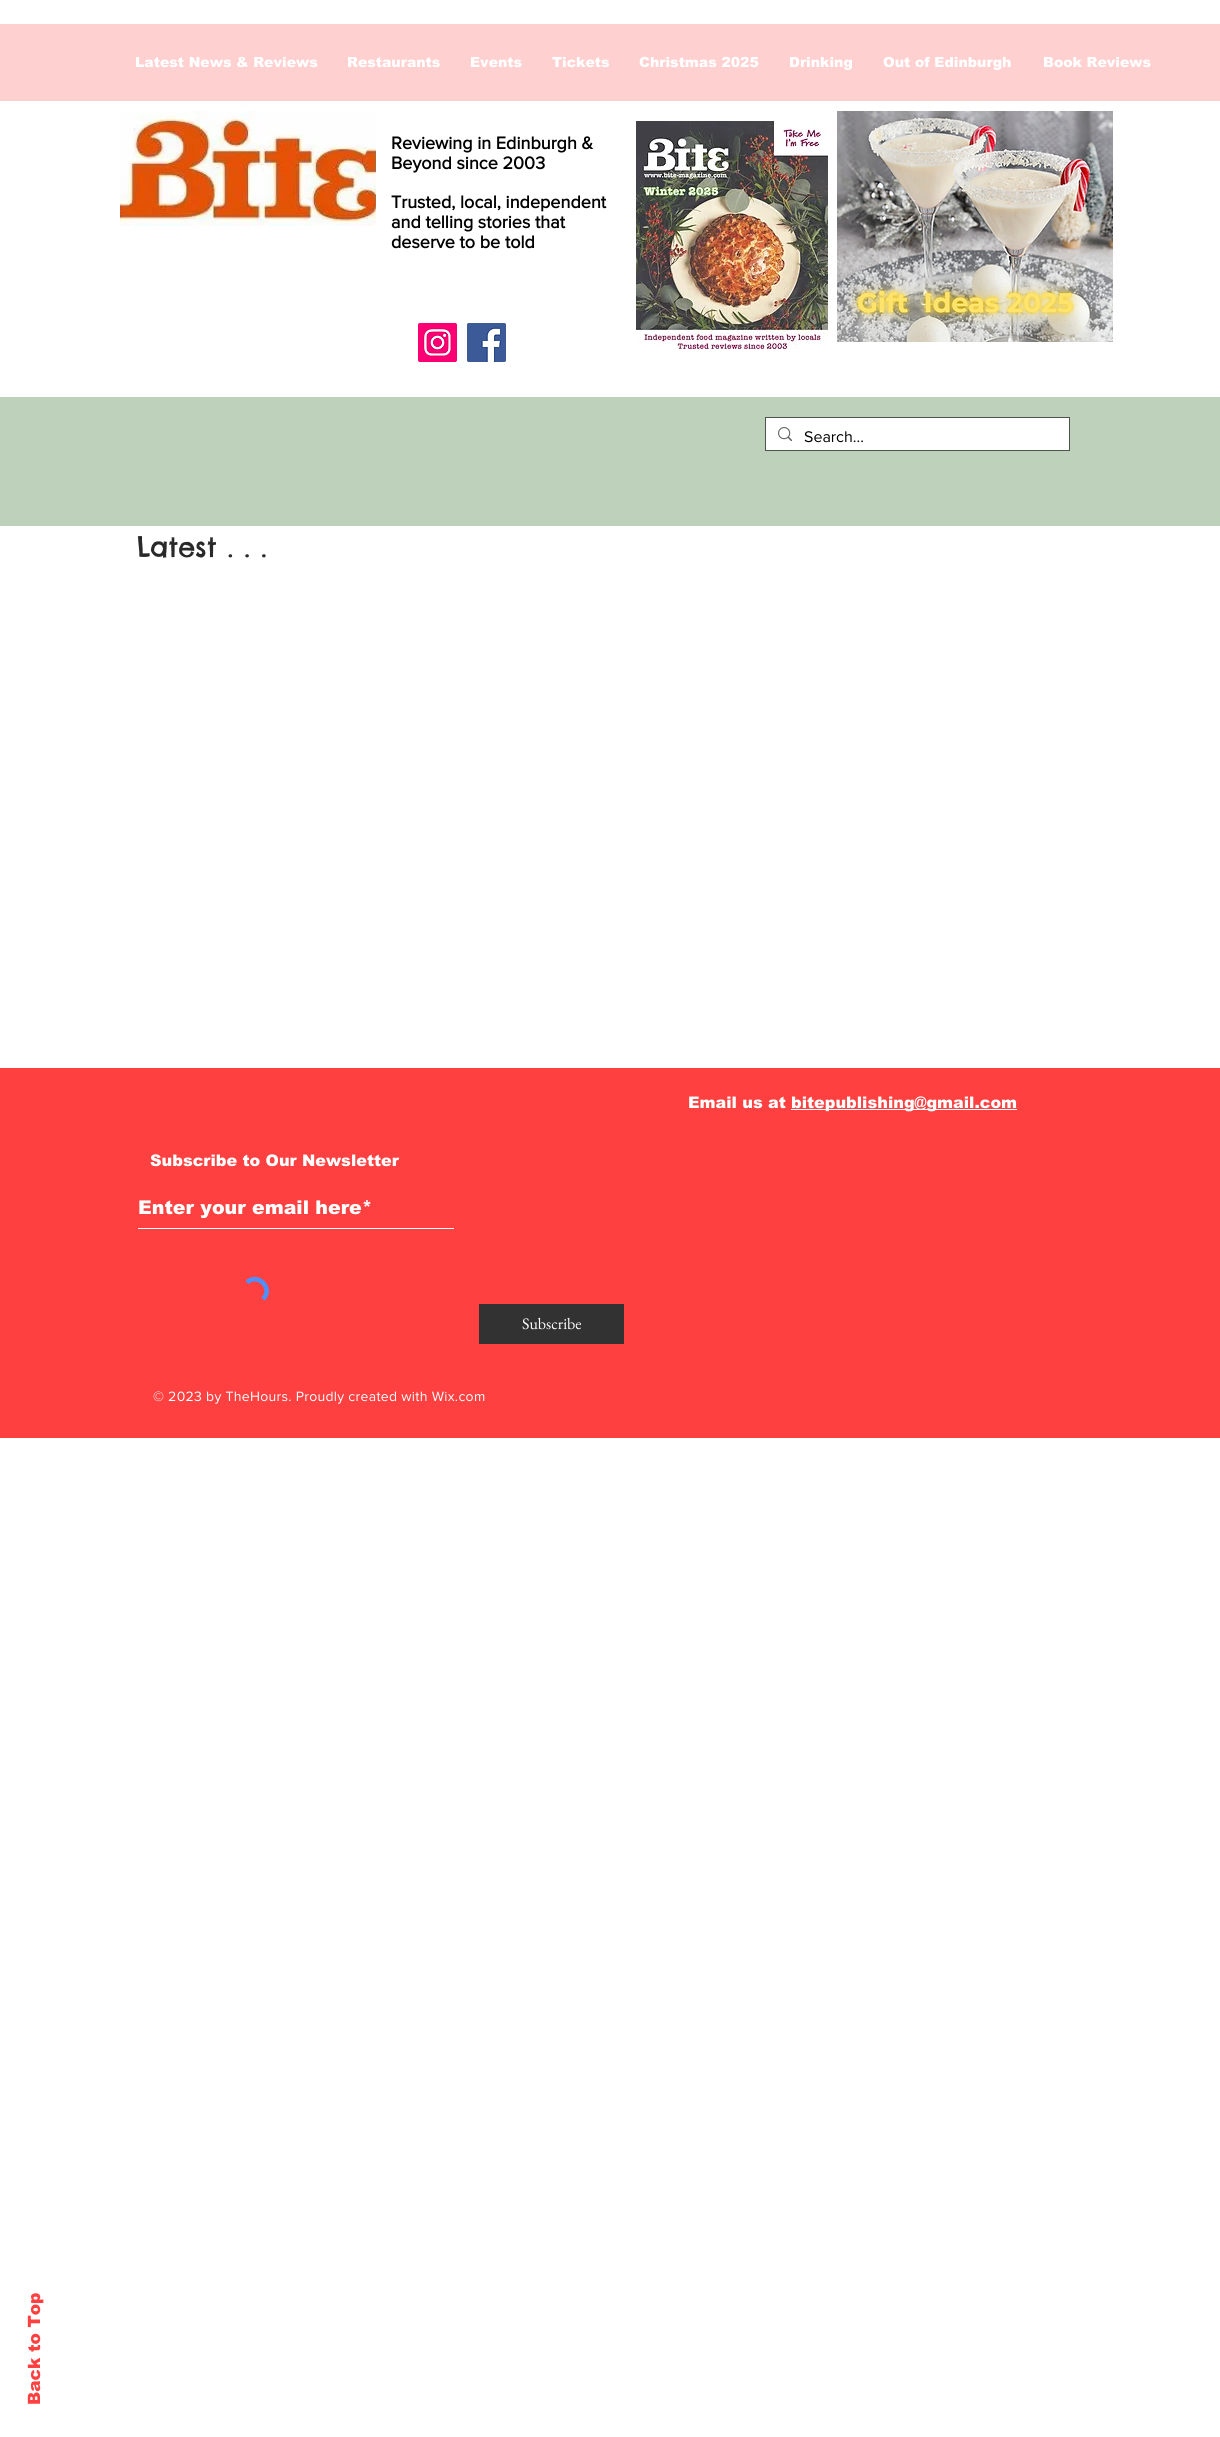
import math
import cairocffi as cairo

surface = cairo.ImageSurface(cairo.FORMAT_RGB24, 1220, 2437)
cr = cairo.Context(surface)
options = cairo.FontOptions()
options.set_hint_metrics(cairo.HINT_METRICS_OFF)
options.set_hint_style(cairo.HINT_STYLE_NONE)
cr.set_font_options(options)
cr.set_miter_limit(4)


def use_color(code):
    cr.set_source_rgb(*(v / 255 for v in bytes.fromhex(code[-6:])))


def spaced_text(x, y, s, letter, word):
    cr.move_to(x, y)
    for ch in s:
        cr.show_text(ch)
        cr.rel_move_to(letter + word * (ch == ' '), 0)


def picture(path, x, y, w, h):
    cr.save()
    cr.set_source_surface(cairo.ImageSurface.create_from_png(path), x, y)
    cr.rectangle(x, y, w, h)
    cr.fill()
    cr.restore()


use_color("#ffffff")
cr.paint()
use_color("#ffd0d0")
cr.rectangle(0, 24, 1220, 77)
cr.fill()
cr.select_font_face("arial Black")
cr.set_font_size(14)
use_color("#ffffff")
cr.move_to(135, 67)
cr.show_text("Latest News & Reviews")
cr.move_to(347, 67)
cr.show_text("Restaurants")
cr.move_to(470, 67)
cr.show_text("Events")
cr.move_to(552, 67)
cr.show_text("Tickets")
cr.move_to(639, 67)
cr.show_text("Christmas 2025")
cr.move_to(789, 67)
cr.show_text("Drinking")
cr.move_to(883, 67)
cr.show_text("Out of Edinburgh")
cr.move_to(1043, 67)
cr.show_text("Book Reviews")
picture("img1.png", 120, 111, 256, 115)
cr.select_font_face("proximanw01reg", cairo.FONT_SLANT_NORMAL, cairo.FONT_WEIGHT_BOLD)
cr.set_font_size(18)
use_color("#000000")
cr.move_to(391, 149)
cr.show_text("Reviewing in Edinburgh &")
cr.move_to(391, 169)
cr.show_text("Beyond since 2003")
cr.move_to(391, 208)
cr.show_text("Trusted, local, independent")
cr.move_to(391, 228)
cr.show_text("and telling stories that")
cr.move_to(391, 248)
cr.show_text("deserve to be told")
picture("img2.png", 636, 121, 192, 232)
picture("img3.png", 837, 111, 276, 231)
picture("img4.png", 418, 323, 39, 39)
picture("img5.png", 467, 323, 39, 39)
use_color("#bdd1bb")
cr.rectangle(0, 397, 1220, 129)
cr.fill()
cr.rectangle(765.5, 417.5, 304, 33)
use_color("#4c544b")
cr.set_line_width(1)
cr.stroke()
use_color("#ffffff")
cr.rectangle(766, 418, 303, 32)
cr.fill()
picture("img6.png", 778, 427, 14, 14)
cr.select_font_face("proximanw01reg")
cr.set_font_size(16)
use_color("#000000")
cr.move_to(804, 442)
cr.show_text("Search...")
cr.select_font_face("Chelsea Market")
cr.set_font_size(27)
use_color("#292929")
cr.move_to(137, 557)
cr.show_text("Latest . . .")
use_color("#ff4040")
cr.rectangle(0, 1068, 1220, 370)
cr.fill()
cr.select_font_face("arial Black")
cr.set_font_size(16)
use_color("#ffffff")
cr.move_to(688, 1108)
cr.show_text("Email us at")
cr.rectangle(791, 1109, 226, 1)
cr.fill()
cr.move_to(791, 1108)
cr.show_text("bitepublishing@gmail.com")
cr.move_to(150, 1166)
cr.show_text("Subscribe to Our Newsletter")
cr.rectangle(138, 1228, 316, 1)
cr.fill()
cr.set_font_size(19)
cr.move_to(138, 1214)
cr.show_text("Enter your email here*")
cr.new_path()
cr.move_to(247, 1282.5)
cr.curve_to(257.5, 1272, 274, 1288.5, 263, 1299)
use_color("#4d90fe")
cr.set_line_width(4.6)
cr.stroke()
use_color("#323232")
cr.rectangle(479, 1304, 145, 40)
cr.fill()
cr.select_font_face("EB Garamond")
cr.set_font_size(16)
use_color("#ffffff")
cr.move_to(522, 1329)
cr.show_text("Subscribe")
cr.select_font_face("proximanw01reg")
cr.set_font_size(14)
spaced_text(153, 1401, "© 2023 by TheHours. Proudly created with Wix.com", 0.3, 0)
cr.select_font_face("arial Black")
cr.set_font_size(17)
use_color("#ff4040")
cr.save()
cr.translate(40, 2405)
cr.rotate(-90 * math.pi / 180)
cr.move_to(0, 0)
cr.show_text("Back to Top")
cr.restore()
surface.write_to_png("result.png")
